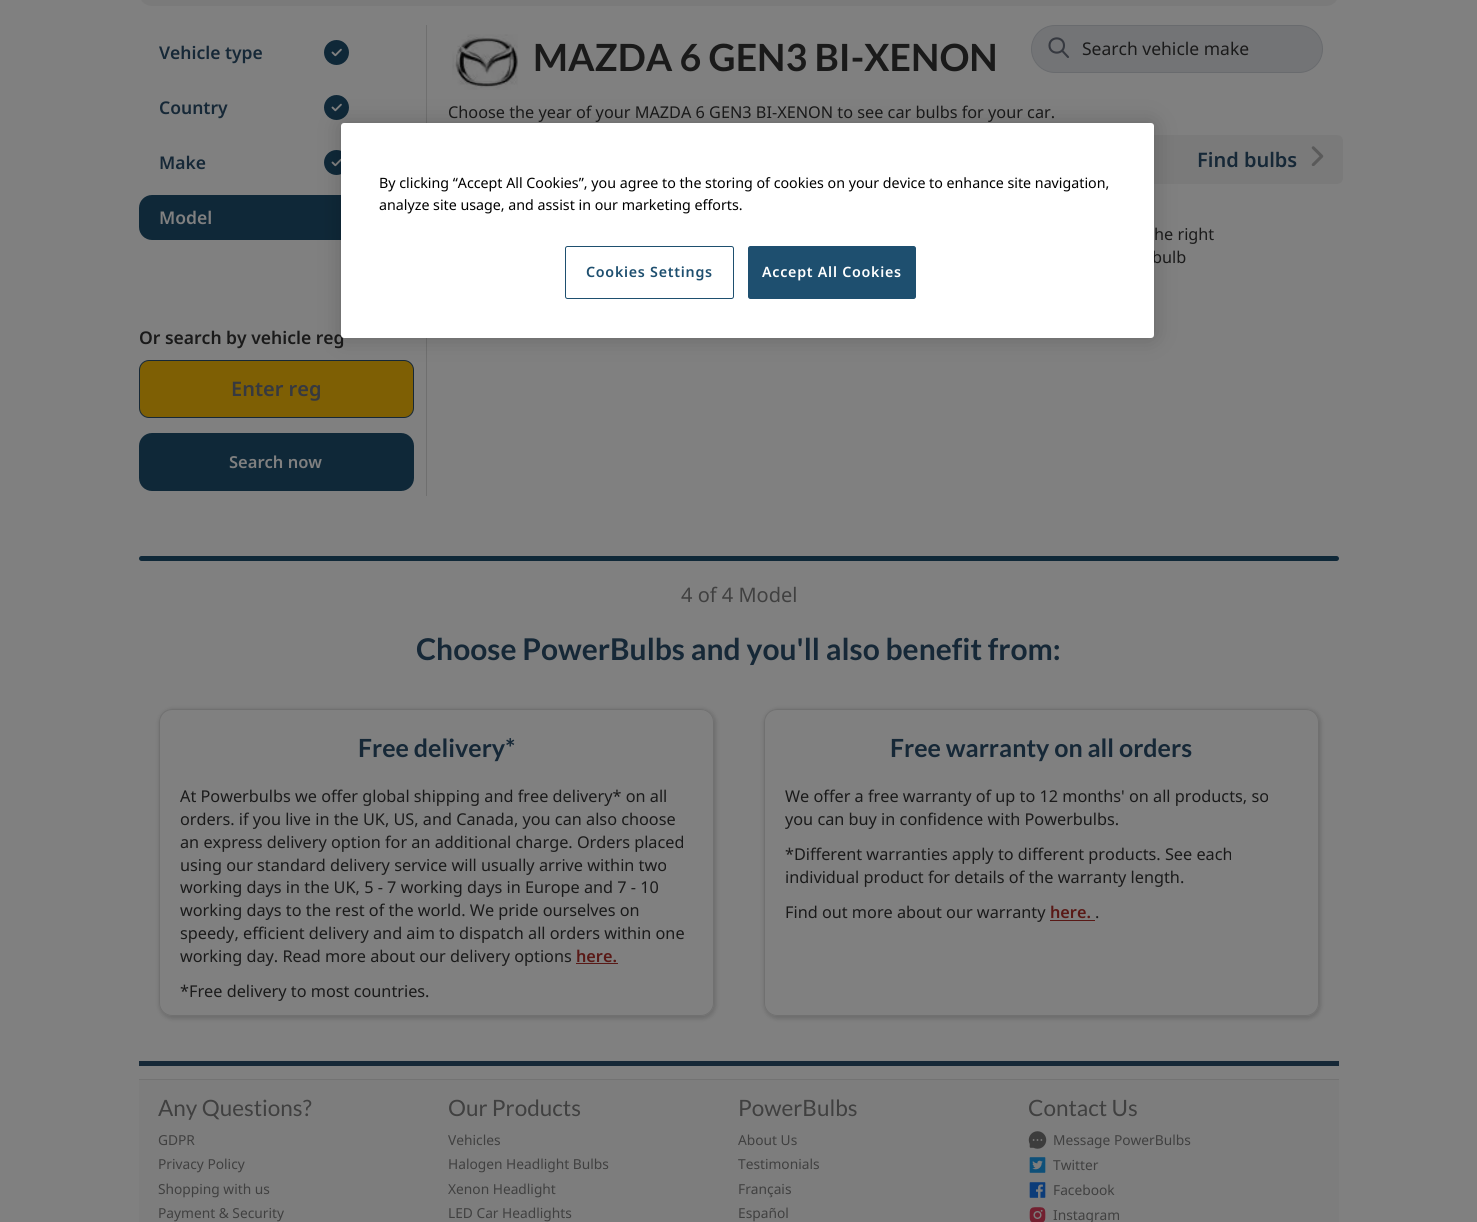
import math
import cairocffi as cairo

surface = cairo.ImageSurface(cairo.FORMAT_RGB24, 1477, 1222)
cr = cairo.Context(surface)
options = cairo.FontOptions()
options.set_hint_metrics(cairo.HINT_METRICS_OFF)
options.set_hint_style(cairo.HINT_STYLE_NONE)
cr.set_font_options(options)
cr.set_miter_limit(4)


def use_color(code):
    cr.set_source_rgb(*(v / 255 for v in bytes.fromhex(code[-6:])))


def spaced_text(x, y, s, letter, word):
    cr.move_to(x, y)
    for ch in s:
        cr.show_text(ch)
        cr.rel_move_to(letter + word * (ch == ' '), 0)


def round_rect(x, y, w, h, r):
    cr.new_sub_path()
    for i, (u, v) in enumerate([(x + w - r, y + h - r), (x + r, y + h - r), (x + r, y + r), (x + w - r, y + r)]):
        cr.arc(u, v, r, i * math.pi / 2, (i + 1) * math.pi / 2)
    cr.close_path()


def shadow(x, y, w, h, r, blur, alpha):
    cr.push_group_with_content(cairo.CONTENT_ALPHA)
    cr.set_operator(cairo.OPERATOR_SOURCE)
    for i in range(15, -16, -2):
        e = blur * i / 6
        if min(w, h) + 2 * e > 0:
            cr.set_source_rgba(0, 0, 0, alpha * math.erfc((i - 1) / 8.5) / 2)
            round_rect(x - e, y - e, w + 2 * e, h + 2 * e, max(0, min(r + e + blur * .6, min(w, h) / 2 + e)))
            cr.fill()
    cr.mask(cr.pop_group())


def picture(path, x, y, w, h):
    cr.save()
    cr.set_source_surface(cairo.ImageSurface.create_from_png(path), x, y)
    cr.rectangle(x, y, w, h)
    cr.fill()
    cr.restore()


use_color("#808080")
cr.paint()
use_color("#7a7a7a")
round_rect(139, -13, 1200, 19, 13)
cr.fill()
cr.select_font_face("Noto Sans SemiBold")
cr.set_font_size(17.5)
use_color("#162837")
cr.move_to(159, 59)
cr.show_text("Vehicle type")
use_color("#0f2838")
cr.new_path()
cr.arc(336.5, 52.5, 12.5, 0, 2 * math.pi)
cr.fill()
picture("img1.png", 331, 48, 11, 9)
use_color("#162837")
cr.move_to(159, 114)
cr.show_text("Country")
use_color("#0f2838")
cr.new_path()
cr.arc(336.5, 107.5, 12.5, 0, 2 * math.pi)
cr.fill()
picture("img1.png", 331, 103, 11, 9)
use_color("#162837")
cr.move_to(159, 169)
cr.show_text("Make")
use_color("#0f2838")
cr.new_path()
cr.arc(336.5, 162.5, 12.5, 0, 2 * math.pi)
cr.fill()
picture("img2.png", 331, 158, 10, 9)
round_rect(139, 195, 230, 45, 13)
cr.fill()
use_color("#808080")
cr.move_to(159, 224)
cr.show_text("Model")
use_color("#1a1a1a")
cr.move_to(139, 344)
cr.show_text("Or search by vehicle reg")
use_color("#7e5f04")
round_rect(139.5, 360.5, 274, 57, 9.5)
cr.fill_preserve()
use_color("#162837")
cr.set_line_width(1)
cr.stroke()
cr.set_font_size(20)
use_color("#363940")
cr.move_to(231, 396)
cr.show_text("Enter reg")
use_color("#0f2838")
round_rect(139, 433, 275, 58, 13)
cr.fill()
cr.set_font_size(16.5)
use_color("#808080")
cr.move_to(229, 468)
cr.show_text("Search now")
use_color("#6f6f6f")
cr.rectangle(426, 25, 1, 471)
cr.fill()
picture("img3.png", 452, 34, 66, 56)
cr.select_font_face("Lato", cairo.FONT_SLANT_NORMAL, cairo.FONT_WEIGHT_BOLD)
cr.set_font_size(37.5)
use_color("#1a1a1a")
cr.move_to(533, 71)
cr.show_text("MAZDA 6 GEN3 BI-XENON")
use_color("#737476")
round_rect(1031.5, 25.5, 291, 47, 23.5)
cr.fill_preserve()
use_color("#696b6e")
cr.stroke()
cr.new_path()
cr.move_to(1068, 57)
cr.line_to(1062, 50.5)
cr.move_to(1064, 45.5)
cr.curve_to(1064, 55, 1049.5, 55, 1049.5, 45.5)
cr.curve_to(1049.5, 36, 1064, 36, 1064, 45.5)
cr.close_path()
use_color("#363940")
cr.set_line_width(2.1)
cr.set_line_cap(cairo.LINE_CAP_ROUND)
cr.set_line_join(cairo.LINE_JOIN_ROUND)
cr.stroke()
cr.select_font_face("Noto Sans")
cr.set_font_size(17.5)
use_color("#1a1a1a")
cr.move_to(1082, 55)
cr.show_text("Search vehicle make")
cr.set_font_size(16.25)
cr.move_to(448, 118)
cr.show_text("Choose the year of your MAZDA 6 GEN3 BI-XENON to see car bulbs for your car.")
use_color("#7a7a7a")
round_rect(448, 135, 895, 49, 6)
cr.fill()
cr.select_font_face("Noto Sans SemiBold")
cr.set_font_size(20)
use_color("#162837")
cr.move_to(1197, 167)
cr.show_text("Find bulbs")
picture("img4.png", 1311, 146, 13, 20)
cr.select_font_face("Noto Sans")
cr.set_font_size(16.25)
use_color("#1a1a1a")
cr.move_to(1154, 240)
cr.show_text("he right")
cr.move_to(1152, 263)
cr.show_text("bulb")
use_color("#0f2838")
round_rect(139, 556, 1200, 5, 2.5)
cr.fill()
cr.set_font_size(20)
use_color("#404040")
cr.move_to(681, 602)
cr.show_text("4 of 4 Model")
cr.select_font_face("Lato", cairo.FONT_SLANT_NORMAL, cairo.FONT_WEIGHT_BOLD)
cr.set_font_size(30)
use_color("#162837")
cr.move_to(416, 660)
cr.show_text("Choose PowerBulbs and you'll also benefit from:")
cr.save()
cr.set_fill_rule(cairo.FILL_RULE_EVEN_ODD)
cr.new_path()
cr.move_to(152, 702)
cr.line_to(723, 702)
cr.line_to(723, 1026)
cr.line_to(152, 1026)
cr.close_path()
cr.move_to(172, 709)
cr.line_to(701, 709)
cr.curve_to(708, 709, 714, 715, 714, 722)
cr.line_to(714, 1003)
cr.curve_to(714, 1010, 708, 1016, 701, 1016)
cr.line_to(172, 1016)
cr.curve_to(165, 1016, 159, 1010, 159, 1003)
cr.line_to(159, 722)
cr.curve_to(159, 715, 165, 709, 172, 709)
cr.close_path()
cr.clip()
use_color("#000000")
shadow(159, 709, 557, 310, 14, 2, 0.15)
cr.restore()
round_rect(159.5, 709.5, 554, 306, 12.5)
use_color("#707070")
cr.set_line_width(1)
cr.set_line_cap(cairo.LINE_CAP_BUTT)
cr.set_line_join(cairo.LINE_JOIN_MITER)
cr.stroke()
cr.set_font_size(25)
use_color("#162837")
cr.move_to(358, 757)
cr.show_text("Free delivery*")
cr.select_font_face("Noto Sans")
cr.set_font_size(16.25)
use_color("#1a1a1a")
cr.move_to(180, 802)
cr.show_text("At Powerbulbs we offer global shipping and free delivery* on all")
cr.move_to(180, 825)
cr.show_text("orders. if you live in the UK, US, and Canada, you can also choose")
cr.move_to(180, 848)
cr.show_text("an express delivery option for an additional charge. Orders placed")
cr.move_to(180, 871)
cr.show_text("using our standard delivery service will usually arrive within two")
cr.move_to(180, 893)
cr.show_text("working days in the UK, 5 - 7 working days in Europe and 7 - 10")
cr.move_to(180, 916)
cr.show_text("working days to the rest of the world. We pride ourselves on")
cr.move_to(180, 939)
cr.show_text("speedy, efficient delivery and aim to dispatch all orders within one")
cr.move_to(180, 962)
cr.show_text("working day. Read more about our delivery options")
cr.select_font_face("Noto Sans SemiBold")
use_color("#591916")
cr.move_to(576, 962)
cr.show_text("here.")
cr.rectangle(576, 963, 42, 1)
cr.fill()
cr.select_font_face("Noto Sans")
use_color("#1a1a1a")
cr.move_to(180, 997)
cr.show_text("*Free delivery to most countries.")
cr.save()
cr.set_fill_rule(cairo.FILL_RULE_EVEN_ODD)
cr.new_path()
cr.move_to(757, 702)
cr.line_to(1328, 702)
cr.line_to(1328, 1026)
cr.line_to(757, 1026)
cr.close_path()
cr.move_to(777, 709)
cr.line_to(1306, 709)
cr.curve_to(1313, 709, 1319, 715, 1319, 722)
cr.line_to(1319, 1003)
cr.curve_to(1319, 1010, 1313, 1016, 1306, 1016)
cr.line_to(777, 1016)
cr.curve_to(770, 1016, 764, 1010, 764, 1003)
cr.line_to(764, 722)
cr.curve_to(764, 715, 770, 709, 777, 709)
cr.close_path()
cr.clip()
use_color("#000000")
shadow(764, 709, 557, 310, 14, 2, 0.15)
cr.restore()
round_rect(764.5, 709.5, 554, 306, 12.5)
use_color("#707070")
cr.stroke()
cr.select_font_face("Lato", cairo.FONT_SLANT_NORMAL, cairo.FONT_WEIGHT_BOLD)
cr.set_font_size(25)
use_color("#162837")
cr.move_to(890, 757)
cr.show_text("Free warranty on all orders")
cr.select_font_face("Noto Sans")
cr.set_font_size(16.25)
use_color("#1a1a1a")
cr.move_to(785, 802)
cr.show_text("We offer a free warranty of up to 12 months' on all products, so")
cr.move_to(785, 825)
cr.show_text("you can buy in confidence with Powerbulbs.")
cr.move_to(785, 860)
cr.show_text("*Different warranties apply to different products. See each")
cr.move_to(785, 883)
cr.show_text("individual product for details of the warranty length.")
cr.move_to(785, 918)
cr.show_text("Find out more about our warranty")
cr.select_font_face("Noto Sans SemiBold")
use_color("#591916")
cr.move_to(1050, 918)
cr.show_text("here.")
cr.rectangle(1050, 920, 45, 1)
cr.fill()
cr.select_font_face("Noto Sans")
use_color("#1a1a1a")
cr.move_to(1095, 918)
cr.show_text(".")
use_color("#162837")
cr.rectangle(139, 1061, 1200, 5)
cr.fill()
use_color("#7d7d7d")
cr.rectangle(139, 1080, 1200, 142)
cr.fill()
use_color("#737373")
cr.rectangle(139, 1079, 1200, 1)
cr.fill()
cr.select_font_face("Lato")
cr.set_font_size(22.5)
use_color("#404040")
cr.move_to(158, 1116)
cr.show_text("Any Questions?")
cr.select_font_face("Noto Sans")
cr.set_font_size(13.75)
cr.move_to(158, 1145)
cr.show_text("GDPR")
cr.move_to(158, 1169)
cr.show_text("Privacy Policy")
cr.move_to(158, 1194)
cr.show_text("Shopping with us")
cr.move_to(158, 1218)
cr.show_text("Payment & Security")
cr.select_font_face("Lato")
cr.set_font_size(22.5)
cr.move_to(448, 1116)
cr.show_text("Our Products")
cr.select_font_face("Noto Sans")
cr.set_font_size(13.75)
cr.move_to(448, 1145)
cr.show_text("Vehicles")
cr.move_to(448, 1169)
cr.show_text("Halogen Headlight Bulbs")
cr.move_to(448, 1194)
cr.show_text("Xenon Headlight")
cr.move_to(448, 1218)
cr.show_text("LED Car Headlights")
cr.select_font_face("Lato")
cr.set_font_size(22.5)
cr.move_to(738, 1116)
cr.show_text("PowerBulbs")
cr.select_font_face("Noto Sans")
cr.set_font_size(13.75)
cr.move_to(738, 1145)
cr.show_text("About Us")
cr.move_to(738, 1169)
cr.show_text("Testimonials")
cr.move_to(738, 1194)
cr.show_text("Français")
cr.move_to(738, 1218)
cr.show_text("Español")
cr.select_font_face("Lato")
cr.set_font_size(22.5)
cr.move_to(1028, 1116)
cr.show_text("Contact Us")
picture("img5.png", 1028, 1131, 19, 18)
cr.select_font_face("Noto Sans")
cr.set_font_size(13.75)
cr.move_to(1053, 1145)
cr.show_text("Message PowerBulbs")
picture("img6.png", 1029, 1157, 17, 16)
cr.move_to(1053, 1170)
cr.show_text("Twitter")
picture("img7.png", 1029, 1182, 17, 16)
cr.move_to(1053, 1195)
cr.show_text("Facebook")
picture("img8.png", 1029, 1207, 17, 15)
cr.move_to(1053, 1220)
cr.show_text("Instagram")
use_color("#000000")
shadow(341, 123, 813, 215, 3, 11, 0.2)
use_color("#ffffff")
round_rect(341, 123, 813, 215, 3)
cr.fill()
cr.set_font_size(14.23)
use_color("#000000")
cr.move_to(379, 188)
cr.show_text("By clicking “Accept All Cookies”, you agree to the storing of cookies on your device to enhance site navigation,")
cr.move_to(379, 210)
cr.show_text("analyze site usage, and assist in our marketing efforts.")
round_rect(565.5, 246.5, 168, 52, 2)
use_color("#1e4f6f")
cr.stroke()
cr.select_font_face("Noto Sans SemiBold")
spaced_text(586, 277, "Cookies Settings", 0.75, 0)
round_rect(748.5, 246.5, 167, 52, 2)
cr.fill_preserve()
cr.stroke()
use_color("#ffffff")
spaced_text(762, 277, "Accept All Cookies", 0.75, 0)
surface.write_to_png("result.png")
